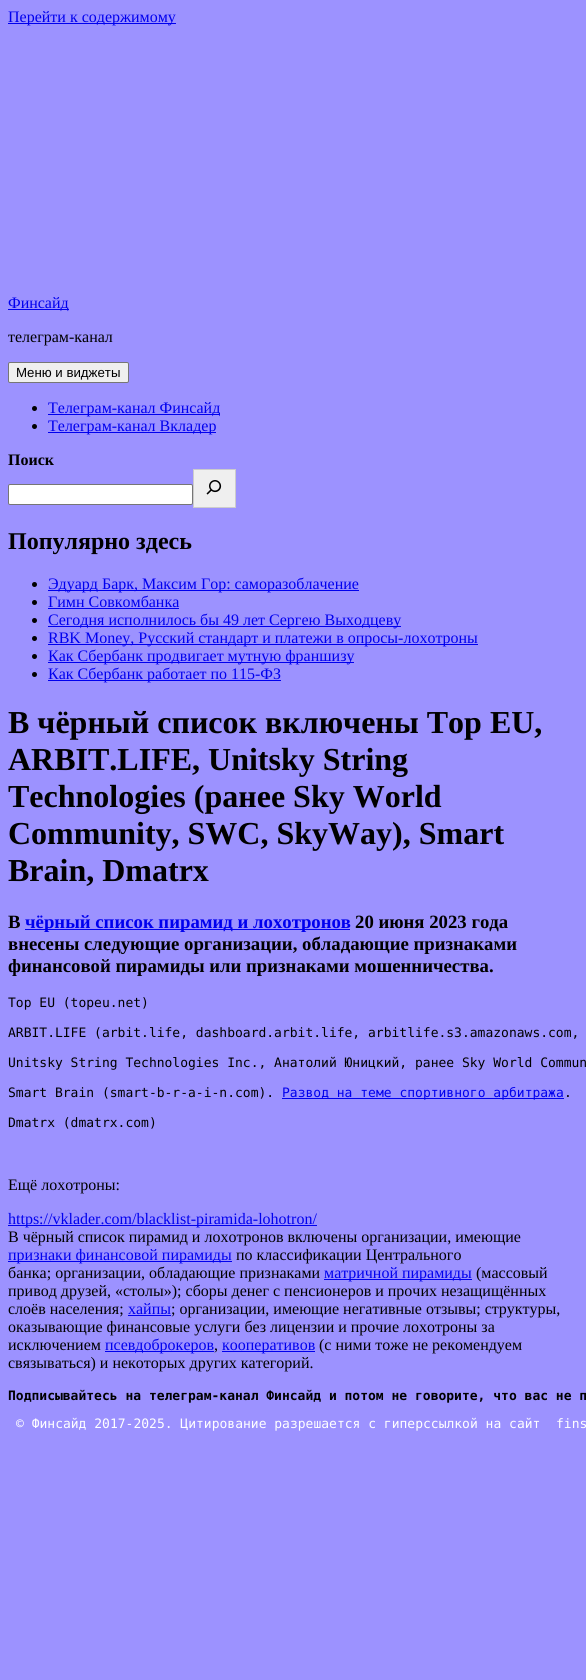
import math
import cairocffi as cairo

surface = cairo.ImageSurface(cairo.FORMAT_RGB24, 586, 1680)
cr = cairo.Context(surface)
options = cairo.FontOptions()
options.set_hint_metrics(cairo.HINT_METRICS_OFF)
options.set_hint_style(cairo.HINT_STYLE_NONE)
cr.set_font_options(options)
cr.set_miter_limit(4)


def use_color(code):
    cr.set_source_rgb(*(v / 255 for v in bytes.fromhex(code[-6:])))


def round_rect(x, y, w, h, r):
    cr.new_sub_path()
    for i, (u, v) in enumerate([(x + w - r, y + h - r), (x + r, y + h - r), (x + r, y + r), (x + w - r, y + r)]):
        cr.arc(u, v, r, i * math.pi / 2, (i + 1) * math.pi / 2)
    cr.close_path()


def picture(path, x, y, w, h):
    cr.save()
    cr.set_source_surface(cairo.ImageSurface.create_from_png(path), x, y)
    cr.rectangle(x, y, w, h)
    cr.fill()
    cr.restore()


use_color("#9c92ff")
cr.paint()
use_color("#0000ee")
cr.rectangle(8, 23, 168, 1)
cr.fill()
cr.select_font_face("Liberation Serif")
cr.set_font_size(16)
cr.move_to(8, 22)
cr.show_text("Перейти к содержимому")
cr.rectangle(8, 309, 61, 1)
cr.fill()
cr.move_to(8, 308)
cr.show_text("Финсайд")
use_color("#000000")
cr.move_to(8, 342)
cr.show_text("телеграм-канал")
use_color("#efefef")
round_rect(8.5, 362.5, 120, 20, 1.5)
cr.fill_preserve()
use_color("#767676")
cr.set_line_width(1)
cr.stroke()
cr.select_font_face("Liberation Sans")
cr.set_font_size(13.25)
use_color("#000000")
cr.move_to(16, 377)
cr.show_text("Меню и виджеты")
cr.new_path()
cr.arc(34.5, 408.5, 2.5, 0, 2 * math.pi)
cr.fill()
use_color("#0000ee")
cr.rectangle(48, 414, 172, 1)
cr.fill()
cr.select_font_face("Liberation Serif")
cr.set_font_size(16)
cr.move_to(48, 413)
cr.show_text("Телеграм-канал Финсайд")
use_color("#000000")
cr.new_path()
cr.arc(34.5, 426.5, 2.5, 0, 2 * math.pi)
cr.fill()
use_color("#0000ee")
cr.rectangle(48, 432, 168, 1)
cr.fill()
cr.move_to(48, 431)
cr.show_text("Телеграм-канал Вкладер")
cr.select_font_face("Liberation Serif", cairo.FONT_SLANT_NORMAL, cairo.FONT_WEIGHT_BOLD)
use_color("#000000")
cr.move_to(8, 465)
cr.show_text("Поиск")
use_color("#ffffff")
round_rect(8.5, 484.5, 184, 20, 1.5)
cr.fill_preserve()
use_color("#767676")
cr.stroke()
use_color("#efefef")
cr.rectangle(193.5, 469.5, 42, 38)
cr.fill_preserve()
use_color("#cccccc")
cr.stroke()
picture("img1.png", 206, 480, 16, 15)
cr.set_font_size(24)
use_color("#000000")
cr.move_to(8, 549)
cr.show_text("Популярно здесь")
cr.new_path()
cr.arc(34.5, 584.5, 2.5, 0, 2 * math.pi)
cr.fill()
use_color("#0000ee")
cr.rectangle(48, 590, 311, 1)
cr.fill()
cr.select_font_face("Liberation Serif")
cr.set_font_size(16)
cr.move_to(48, 589)
cr.show_text("Эдуард Барк, Максим Гор: саморазоблачение")
use_color("#000000")
cr.new_path()
cr.arc(34.5, 602.5, 2.5, 0, 2 * math.pi)
cr.fill()
use_color("#0000ee")
cr.move_to(48, 607)
cr.show_text("Гимн Совкомбанка")
cr.rectangle(48, 608, 131, 1)
cr.fill()
use_color("#000000")
cr.arc(34.5, 620.5, 2.5, 0, 2 * math.pi)
cr.fill()
use_color("#0000ee")
cr.rectangle(48, 626, 353, 1)
cr.fill()
cr.move_to(48, 625)
cr.show_text("Сегодня исполнилось бы 49 лет Сергею Выходцеву")
use_color("#000000")
cr.new_path()
cr.arc(34.5, 638.5, 2.5, 0, 2 * math.pi)
cr.fill()
use_color("#0000ee")
cr.rectangle(48, 644, 430, 1)
cr.fill()
cr.move_to(48, 643)
cr.show_text("RBK Money, Русский стандарт и платежи в опросы-лохотроны")
use_color("#000000")
cr.new_path()
cr.arc(34.5, 656.5, 2.5, 0, 2 * math.pi)
cr.fill()
use_color("#0000ee")
cr.rectangle(48, 662, 306, 1)
cr.fill()
cr.move_to(48, 661)
cr.show_text("Как Сбербанк продвигает мутную франшизу")
use_color("#000000")
cr.new_path()
cr.arc(34.5, 674.5, 2.5, 0, 2 * math.pi)
cr.fill()
use_color("#0000ee")
cr.rectangle(48, 680, 233, 1)
cr.fill()
cr.move_to(48, 679)
cr.show_text("Как Сбербанк работает по 115-ФЗ")
cr.select_font_face("Liberation Serif", cairo.FONT_SLANT_NORMAL, cairo.FONT_WEIGHT_BOLD)
cr.set_font_size(32)
use_color("#000000")
cr.move_to(8, 733)
cr.show_text("В чёрный список включены Top EU,")
cr.move_to(8, 770)
cr.show_text("ARBIT.LIFE, Unitsky String")
cr.move_to(8, 807)
cr.show_text("Technologies (ранее Sky World")
cr.move_to(8, 844)
cr.show_text("Community, SWC, SkyWay), Smart")
cr.move_to(8, 881)
cr.show_text("Brain, Dmatrx")
cr.set_font_size(18.75)
cr.move_to(8, 928)
cr.show_text("В")
use_color("#0000ee")
cr.rectangle(25, 929, 325, 1)
cr.fill()
cr.move_to(25, 928)
cr.show_text("чёрный список пирамид и лохотронов")
use_color("#000000")
cr.move_to(355, 928)
cr.show_text("20 июня 2023 года")
cr.move_to(8, 950)
cr.show_text("внесены следующие организации, обладающие признаками")
cr.move_to(8, 972)
cr.show_text("финансовой пирамиды или признаками мошенничества.")
cr.select_font_face("DejaVu Sans Mono")
cr.set_font_size(13)
cr.move_to(8, 1007)
cr.show_text("Top EU (topeu.net)")
cr.move_to(8, 1037)
cr.show_text("ARBIT.LIFE (arbit.life, dashboard.arbit.life, arbitlife.s3.amazonaws.com,")
cr.move_to(8, 1067)
cr.show_text("Unitsky String Technologies Inc., Анатолий Юницкий, ранее Sky World Commun")
cr.move_to(8, 1097)
cr.show_text("Smart Brain (smart-b-r-a-i-n.com).")
use_color("#0000ee")
cr.rectangle(282, 1098, 282, 1)
cr.fill()
cr.move_to(282, 1097)
cr.show_text("Развод на теме спортивного арбитража")
use_color("#000000")
cr.move_to(564, 1097)
cr.show_text(".")
cr.move_to(8, 1127)
cr.show_text("Dmatrx (dmatrx.com)")
cr.select_font_face("Liberation Serif")
cr.set_font_size(16)
cr.move_to(8, 1190)
cr.show_text("Ещё лохотроны:")
use_color("#0000ee")
cr.rectangle(8, 1225, 309, 1)
cr.fill()
cr.move_to(8, 1224)
cr.show_text("https://vklader.com/blacklist-piramida-lohotron/")
use_color("#000000")
cr.move_to(8, 1242)
cr.show_text("В чёрный список пирамид и лохотронов включены организации, имеющие")
use_color("#0000ee")
cr.rectangle(8, 1261, 224, 1)
cr.fill()
cr.move_to(8, 1260)
cr.show_text("признаки финансовой пирамиды")
use_color("#000000")
cr.move_to(236, 1260)
cr.show_text("по классификации Центрального")
cr.move_to(8, 1278)
cr.show_text("банка; организации, обладающие признаками")
use_color("#0000ee")
cr.rectangle(324, 1279, 148, 1)
cr.fill()
cr.move_to(324, 1278)
cr.show_text("матричной пирамиды")
use_color("#000000")
cr.move_to(476, 1278)
cr.show_text("(массовый")
cr.move_to(8, 1296)
cr.show_text("привод друзей, «столы»); сборы денег с пенсионеров и прочих незащищённых")
cr.move_to(8, 1314)
cr.show_text("слоёв населения;")
use_color("#0000ee")
cr.move_to(128, 1314)
cr.show_text("хайпы")
cr.rectangle(128, 1315, 43, 1)
cr.fill()
use_color("#000000")
cr.move_to(171, 1314)
cr.show_text("; организации, имеющие негативные отзывы; структуры,")
cr.move_to(8, 1332)
cr.show_text("оказывающие финансовые услуги без лицензии и прочие лохотроны за")
cr.move_to(8, 1350)
cr.show_text("исключением")
use_color("#0000ee")
cr.rectangle(105, 1351, 109, 1)
cr.fill()
cr.move_to(105, 1350)
cr.show_text("псевдоброкеров")
use_color("#000000")
cr.move_to(214, 1350)
cr.show_text(",")
use_color("#0000ee")
cr.rectangle(222, 1351, 93, 1)
cr.fill()
cr.move_to(222, 1350)
cr.show_text("кооперативов")
use_color("#000000")
cr.move_to(319, 1350)
cr.show_text("(с ними тоже не рекомендуем")
cr.move_to(8, 1368)
cr.show_text("связываться) и некоторых других категорий.")
cr.select_font_face("DejaVu Sans Mono", cairo.FONT_SLANT_NORMAL, cairo.FONT_WEIGHT_BOLD)
cr.set_font_size(13)
cr.move_to(8, 1400)
cr.show_text("Подписывайтесь на телеграм-канал Финсайд и потом не говорите, что вас не п")
cr.select_font_face("DejaVu Sans Mono")
use_color("#ffffff")
cr.move_to(16, 1428)
cr.show_text("© Финсайд 2017-2025. Цитирование разрешается с гиперссылкой на сайт  fins")
surface.write_to_png("result.png")
